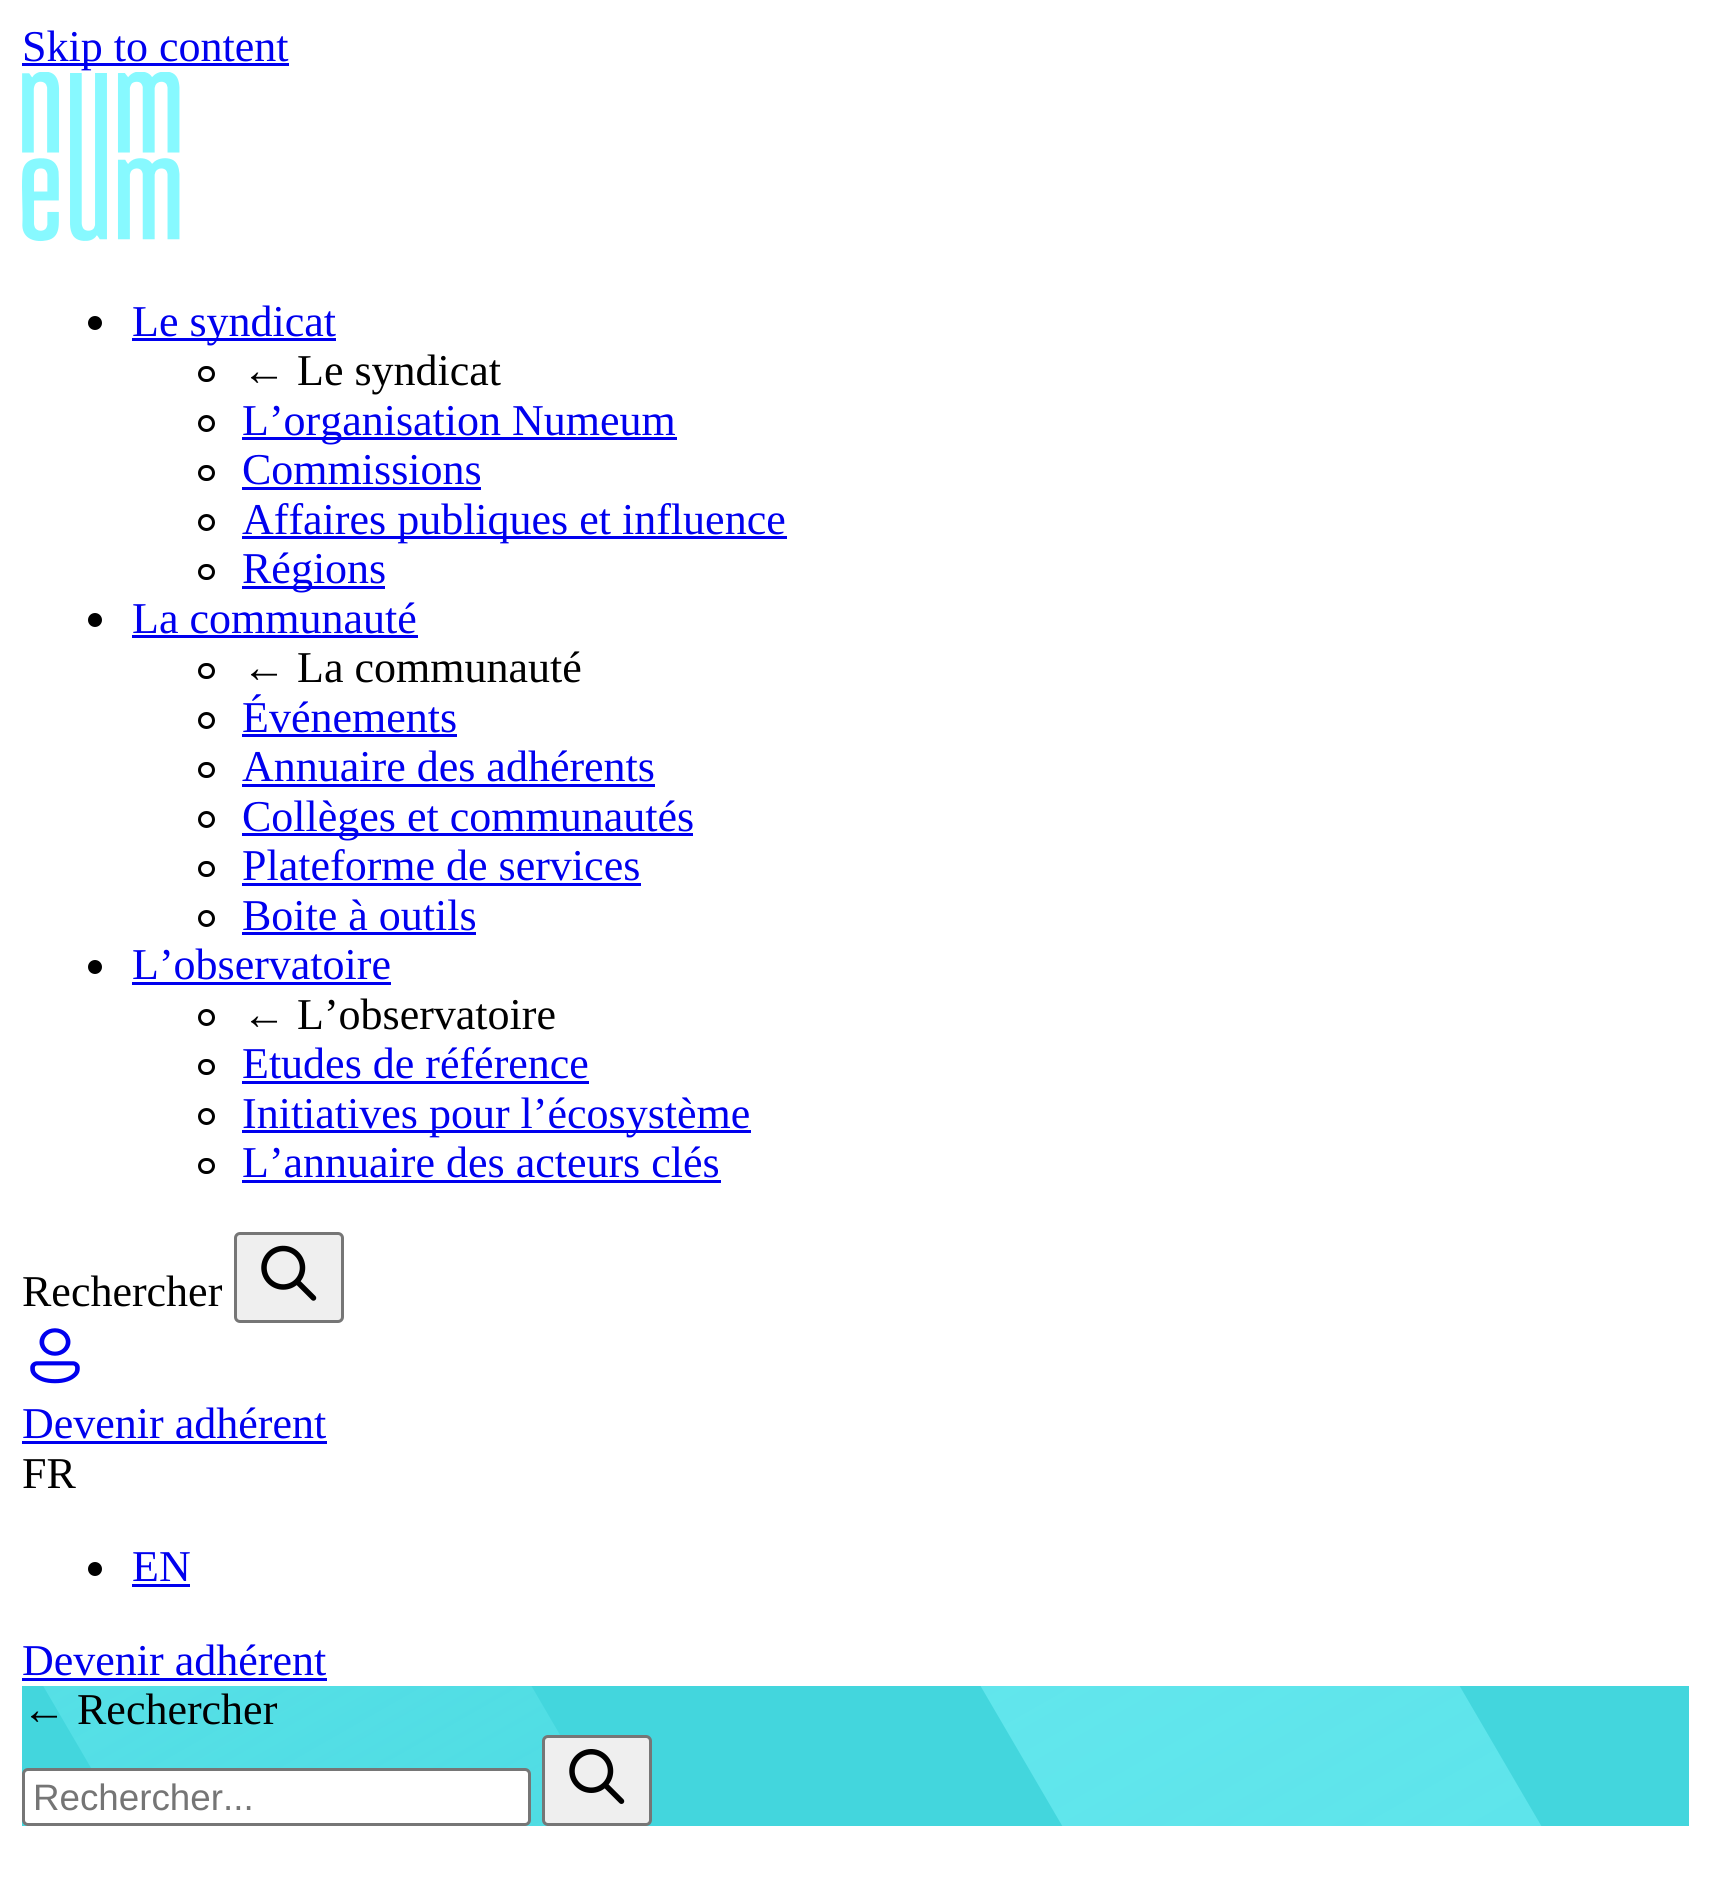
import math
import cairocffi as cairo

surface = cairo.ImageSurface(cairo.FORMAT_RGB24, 1709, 1881)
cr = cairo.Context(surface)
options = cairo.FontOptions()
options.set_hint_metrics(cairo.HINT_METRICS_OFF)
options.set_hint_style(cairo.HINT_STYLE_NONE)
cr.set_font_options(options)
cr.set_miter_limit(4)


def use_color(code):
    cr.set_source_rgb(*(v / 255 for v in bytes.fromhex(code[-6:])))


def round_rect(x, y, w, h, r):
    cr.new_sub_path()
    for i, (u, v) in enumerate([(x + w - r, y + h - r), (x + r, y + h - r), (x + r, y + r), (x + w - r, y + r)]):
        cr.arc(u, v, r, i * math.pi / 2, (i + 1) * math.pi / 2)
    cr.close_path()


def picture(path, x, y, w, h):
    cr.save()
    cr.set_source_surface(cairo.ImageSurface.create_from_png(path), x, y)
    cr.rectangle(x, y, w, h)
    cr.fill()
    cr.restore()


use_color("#ffffff")
cr.paint()
use_color("#0000ee")
cr.rectangle(22, 63, 267, 3)
cr.fill()
cr.select_font_face("Liberation Serif")
cr.set_font_size(44)
cr.move_to(22, 61)
cr.show_text("Skip to content")
picture("img1.png", 22, 72, 158, 170)
use_color("#000000")
cr.arc(95, 323, 7, 0, 2 * math.pi)
cr.fill()
use_color("#0000ee")
cr.rectangle(132, 338, 204, 3)
cr.fill()
cr.move_to(132, 336)
cr.show_text("Le syndicat")
round_rect(199.5, 367.5, 14, 13, 6.5)
use_color("#000000")
cr.set_line_width(3)
cr.stroke()
cr.move_to(242, 385)
cr.show_text("← Le syndicat")
cr.new_path()
cr.arc(206.5, 423.5, 7, 0, 2 * math.pi)
cr.stroke()
use_color("#0000ee")
cr.rectangle(242, 437, 435, 3)
cr.fill()
cr.move_to(242, 435)
cr.show_text("L’organisation Numeum")
round_rect(199.5, 466.5, 14, 13, 6.5)
use_color("#000000")
cr.stroke()
use_color("#0000ee")
cr.move_to(242, 484)
cr.show_text("Commissions")
cr.rectangle(242, 487, 239, 3)
cr.fill()
cr.arc(206.5, 522.5, 7, 0, 2 * math.pi)
use_color("#000000")
cr.stroke()
use_color("#0000ee")
cr.rectangle(242, 536, 545, 3)
cr.fill()
cr.move_to(242, 534)
cr.show_text("Affaires publiques et influence")
round_rect(199.5, 565.5, 14, 13, 6.5)
use_color("#000000")
cr.stroke()
use_color("#0000ee")
cr.rectangle(242, 586, 143, 3)
cr.fill()
cr.move_to(242, 583)
cr.show_text("Régions")
use_color("#000000")
cr.new_path()
cr.arc(95, 620, 7, 0, 2 * math.pi)
cr.fill()
use_color("#0000ee")
cr.move_to(132, 633)
cr.show_text("La communauté")
cr.rectangle(132, 635, 286, 3)
cr.fill()
round_rect(199.5, 664.5, 14, 13, 6.5)
use_color("#000000")
cr.stroke()
cr.move_to(242, 682)
cr.show_text("← La communauté")
cr.new_path()
cr.arc(206.5, 720.5, 7, 0, 2 * math.pi)
cr.stroke()
use_color("#0000ee")
cr.move_to(242, 732)
cr.show_text("Événements")
cr.rectangle(242, 734, 215, 3)
cr.fill()
round_rect(199.5, 763.5, 14, 13, 6.5)
use_color("#000000")
cr.stroke()
use_color("#0000ee")
cr.move_to(242, 781)
cr.show_text("Annuaire des adhérents")
cr.rectangle(242, 784, 413, 3)
cr.fill()
cr.arc(206.5, 819.5, 7, 0, 2 * math.pi)
use_color("#000000")
cr.stroke()
use_color("#0000ee")
cr.rectangle(242, 833, 451, 3)
cr.fill()
cr.move_to(242, 831)
cr.show_text("Collèges et communautés")
round_rect(199.5, 862.5, 14, 13, 6.5)
use_color("#000000")
cr.stroke()
use_color("#0000ee")
cr.move_to(242, 880)
cr.show_text("Plateforme de services")
cr.rectangle(242, 883, 399, 3)
cr.fill()
cr.arc(206.5, 918.5, 7, 0, 2 * math.pi)
use_color("#000000")
cr.stroke()
use_color("#0000ee")
cr.move_to(242, 930)
cr.show_text("Boite à outils")
cr.rectangle(242, 932, 234, 3)
cr.fill()
use_color("#000000")
cr.arc(95, 967, 7, 0, 2 * math.pi)
cr.fill()
use_color("#0000ee")
cr.move_to(132, 979)
cr.show_text("L’observatoire")
cr.rectangle(132, 982, 259, 3)
cr.fill()
cr.arc(206.5, 1017.5, 7, 0, 2 * math.pi)
use_color("#000000")
cr.stroke()
cr.move_to(242, 1029)
cr.show_text("← L’observatoire")
round_rect(199.5, 1060.5, 14, 13, 6.5)
cr.stroke()
use_color("#0000ee")
cr.move_to(242, 1078)
cr.show_text("Etudes de référence")
cr.rectangle(242, 1081, 347, 3)
cr.fill()
cr.arc(206.5, 1116.5, 7, 0, 2 * math.pi)
use_color("#000000")
cr.stroke()
use_color("#0000ee")
cr.rectangle(242, 1130, 509, 3)
cr.fill()
cr.move_to(242, 1128)
cr.show_text("Initiatives pour l’écosystème")
round_rect(199.5, 1159.5, 14, 13, 6.5)
use_color("#000000")
cr.stroke()
use_color("#0000ee")
cr.move_to(242, 1177)
cr.show_text("L’annuaire des acteurs clés")
cr.rectangle(242, 1180, 479, 3)
cr.fill()
use_color("#000000")
cr.move_to(22, 1306)
cr.show_text("Rechercher")
use_color("#efefef")
round_rect(235.5, 1233.5, 107, 88, 4.5)
cr.fill_preserve()
use_color("#767676")
cr.stroke()
picture("img2.png", 261, 1245, 56, 56)
picture("img3.png", 30, 1328, 50, 56)
use_color("#0000ee")
cr.move_to(22, 1438)
cr.show_text("Devenir adhérent")
cr.rectangle(22, 1441, 305, 3)
cr.fill()
use_color("#000000")
cr.move_to(22, 1488)
cr.show_text("FR")
cr.new_path()
cr.arc(95, 1569, 7, 0, 2 * math.pi)
cr.fill()
use_color("#0000ee")
cr.move_to(132, 1581)
cr.show_text("EN")
cr.rectangle(132, 1584, 58, 3)
cr.fill()
cr.move_to(22, 1675)
cr.show_text("Devenir adhérent")
cr.rectangle(22, 1678, 305, 3)
cr.fill()
picture("img4.png", 22, 1686, 1667, 140)
use_color("#000000")
cr.move_to(22, 1724)
cr.show_text("← Rechercher")
use_color("#ffffff")
round_rect(23.5, 1769.5, 506, 55, 4.5)
cr.fill_preserve()
use_color("#767676")
cr.stroke()
cr.select_font_face("Liberation Sans")
cr.set_font_size(36.75)
use_color("#757575")
cr.move_to(33, 1810)
cr.show_text("Rechercher...")
use_color("#efefef")
round_rect(543.5, 1736.5, 107, 88, 4.5)
cr.fill_preserve()
use_color("#767676")
cr.stroke()
picture("img5.png", 569, 1749, 56, 55)
surface.write_to_png("result.png")
